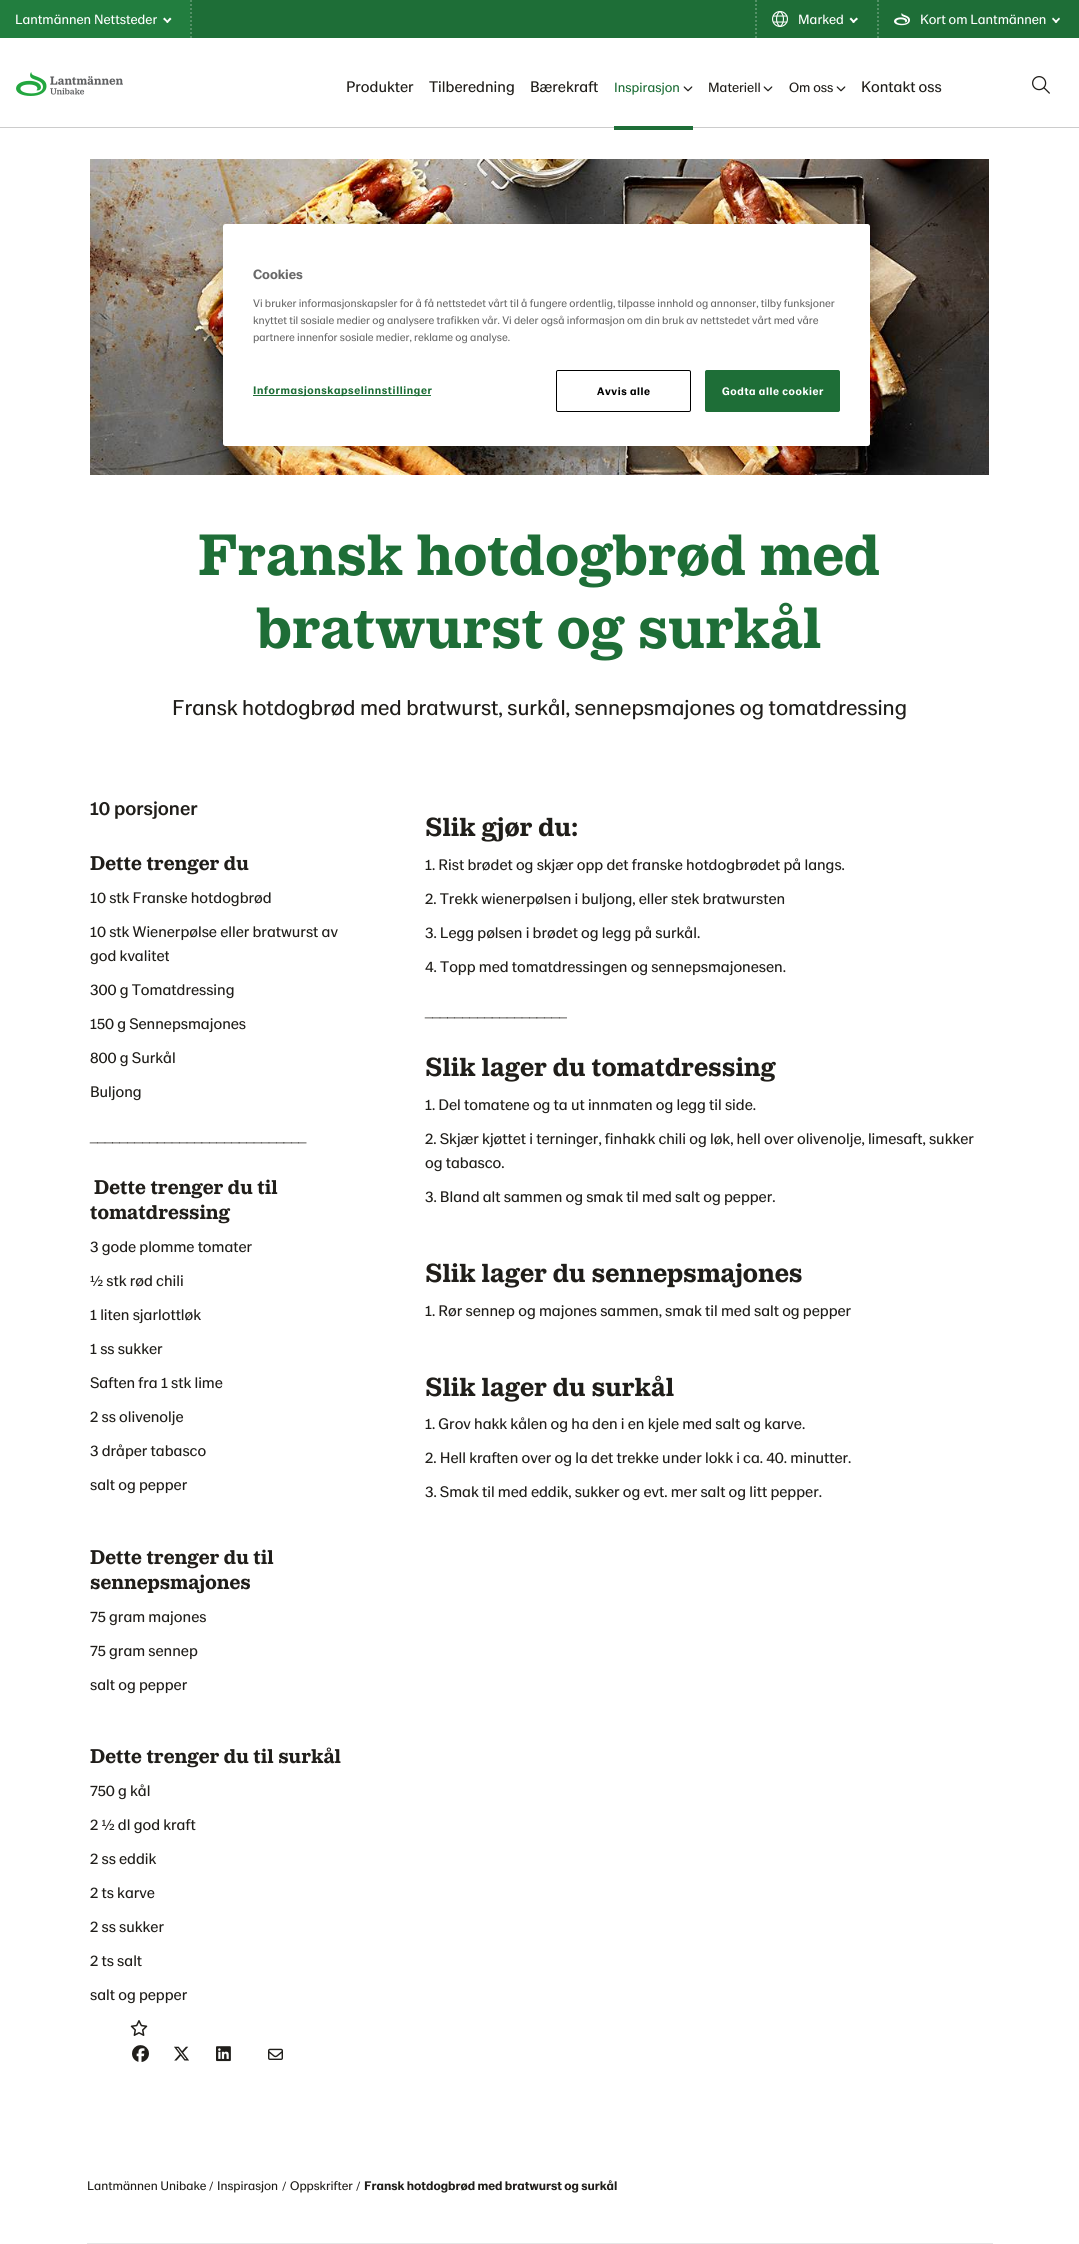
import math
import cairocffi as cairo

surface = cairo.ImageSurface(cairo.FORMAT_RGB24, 1079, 2244)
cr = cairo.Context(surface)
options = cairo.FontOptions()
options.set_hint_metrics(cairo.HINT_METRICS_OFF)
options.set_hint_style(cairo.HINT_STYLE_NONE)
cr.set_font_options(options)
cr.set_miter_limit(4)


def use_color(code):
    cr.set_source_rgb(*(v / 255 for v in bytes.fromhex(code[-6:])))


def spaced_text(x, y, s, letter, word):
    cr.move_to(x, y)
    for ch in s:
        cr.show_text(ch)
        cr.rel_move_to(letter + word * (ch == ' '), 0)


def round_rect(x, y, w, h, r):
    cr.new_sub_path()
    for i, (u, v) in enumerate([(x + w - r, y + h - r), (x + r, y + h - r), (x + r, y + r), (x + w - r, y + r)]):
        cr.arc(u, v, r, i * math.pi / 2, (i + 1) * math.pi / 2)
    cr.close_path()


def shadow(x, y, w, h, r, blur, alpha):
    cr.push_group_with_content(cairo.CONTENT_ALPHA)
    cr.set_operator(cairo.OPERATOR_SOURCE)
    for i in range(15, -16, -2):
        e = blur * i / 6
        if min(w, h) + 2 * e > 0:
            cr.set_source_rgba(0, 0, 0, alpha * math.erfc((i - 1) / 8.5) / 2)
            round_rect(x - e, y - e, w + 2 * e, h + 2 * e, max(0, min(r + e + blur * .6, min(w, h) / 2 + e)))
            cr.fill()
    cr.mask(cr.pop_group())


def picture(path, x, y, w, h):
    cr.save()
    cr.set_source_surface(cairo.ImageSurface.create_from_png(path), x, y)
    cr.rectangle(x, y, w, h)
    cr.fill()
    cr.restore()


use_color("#ffffff")
cr.paint()
use_color("#1e6e37")
cr.rectangle(190, 0, 889, 38)
cr.fill()
cr.new_path()
cr.move_to(191, 0)
cr.line_to(191, 38)
use_color("#549167")
cr.set_dash([2, 2])
cr.stroke()
use_color("#227e3f")
cr.rectangle(0, 0, 190, 38)
cr.fill()
cr.select_font_face("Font")
cr.set_font_size(14)
use_color("#ffffff")
cr.move_to(15, 24)
cr.show_text("Lantmännen Nettsteder")
cr.new_path()
cr.move_to(171.5, 19)
cr.line_to(167.5, 23)
cr.line_to(166, 22)
cr.line_to(170, 17.5)
cr.close_path()
cr.fill()
cr.new_path()
cr.move_to(168.5, 22)
cr.line_to(167.5, 23)
cr.line_to(163, 19)
cr.line_to(164.5, 17.5)
cr.close_path()
cr.fill()
cr.new_path()
cr.move_to(756, 0)
cr.line_to(756, 38)
use_color("#549167")
cr.stroke()
picture("img1.png", 772, 11, 16, 16)
use_color("#ffffff")
cr.move_to(798, 24)
cr.show_text("Marked")
cr.new_path()
cr.move_to(858, 19)
cr.line_to(853.5, 23)
cr.line_to(852, 22)
cr.line_to(856.5, 17.5)
cr.close_path()
cr.fill()
cr.new_path()
cr.move_to(855, 22)
cr.line_to(853.5, 23)
cr.line_to(849.5, 19)
cr.line_to(851, 17.5)
cr.close_path()
cr.fill()
cr.new_path()
cr.move_to(878, 0)
cr.line_to(878, 38)
use_color("#549167")
cr.stroke()
picture("img2.png", 894, 13, 16, 13)
use_color("#ffffff")
cr.move_to(920, 24)
cr.show_text("Kort om Lantmännen")
cr.new_path()
cr.move_to(1060, 19)
cr.line_to(1056, 23)
cr.line_to(1054.5, 22)
cr.line_to(1059, 17.5)
cr.close_path()
cr.fill()
cr.new_path()
cr.move_to(1057.5, 22)
cr.line_to(1056, 23)
cr.line_to(1052, 19)
cr.line_to(1053, 17.5)
cr.close_path()
cr.fill()
use_color("#cccccc")
cr.rectangle(0, 127, 1079, 1)
cr.fill()
picture("img3.png", 16, 72, 107, 24)
cr.set_font_size(16)
use_color("#201e1a")
cr.move_to(346, 92)
cr.show_text("Produkter")
cr.move_to(429, 92)
cr.show_text("Tilberedning")
cr.move_to(530, 92)
cr.show_text("Bærekraft")
use_color("#1e6e37")
cr.rectangle(614, 126, 79, 4)
cr.fill()
cr.set_font_size(14)
cr.move_to(614, 92)
cr.show_text("Inspirasjon")
picture("img4.png", 683, 86, 10, 6)
use_color("#201e1a")
cr.move_to(708, 92)
cr.show_text("Materiell")
picture("img4.png", 763, 86, 10, 6)
cr.move_to(789, 92)
cr.show_text("Om oss")
picture("img4.png", 836, 86, 10, 6)
cr.set_font_size(16)
cr.move_to(861, 92)
cr.show_text("Kontakt oss")
picture("img5.png", 1032, 76, 18, 18)
picture("img6.png", 90, 159, 899, 316)
cr.select_font_face("Font", cairo.FONT_SLANT_NORMAL, cairo.FONT_WEIGHT_BOLD)
cr.set_font_size(60.75)
use_color("#1e6e37")
cr.move_to(198, 575)
cr.show_text("Fransk hotdogbrød med")
cr.move_to(257, 648)
cr.show_text("bratwurst og surkål")
cr.select_font_face("Font")
cr.set_font_size(22.4)
use_color("#201e1a")
cr.move_to(172, 715)
cr.show_text("Fransk hotdogbrød med bratwurst, surkål, sennepsmajones og tomatdressing")
cr.select_font_face("Font Medium")
cr.set_font_size(20)
cr.move_to(90, 815)
cr.show_text("10 porsjoner")
cr.select_font_face("Font", cairo.FONT_SLANT_NORMAL, cairo.FONT_WEIGHT_BOLD)
cr.set_font_size(20.75)
cr.move_to(90, 870)
cr.show_text("Dette trenger du")
cr.select_font_face("Font")
cr.set_font_size(16)
cr.move_to(90, 903)
cr.show_text("10 stk Franske hotdogbrød")
cr.move_to(90, 937)
cr.show_text("10 stk Wienerpølse eller bratwurst av")
cr.move_to(90, 961)
cr.show_text("god kvalitet")
cr.move_to(90, 995)
cr.show_text("300 g Tomatdressing")
cr.move_to(90, 1029)
cr.show_text("150 g Sennepsmajones")
cr.move_to(90, 1063)
cr.show_text("800 g Surkål")
cr.move_to(90, 1097)
cr.show_text("Buljong")
cr.move_to(90, 1141)
cr.show_text("_____________________________")
cr.select_font_face("Font", cairo.FONT_SLANT_NORMAL, cairo.FONT_WEIGHT_BOLD)
cr.set_font_size(20.75)
cr.move_to(94, 1194)
cr.show_text("Dette trenger du til")
cr.move_to(90, 1219)
cr.show_text("tomatdressing")
cr.select_font_face("Font")
cr.set_font_size(16)
cr.move_to(90, 1252)
cr.show_text("3 gode plomme tomater")
cr.move_to(90, 1286)
cr.show_text("½ stk rød chili")
cr.move_to(90, 1320)
cr.show_text("1 liten sjarlottløk")
cr.move_to(90, 1354)
cr.show_text("1 ss sukker")
cr.move_to(90, 1388)
cr.show_text("Saften fra 1 stk lime")
cr.move_to(90, 1422)
cr.show_text("2 ss olivenolje")
cr.move_to(90, 1456)
cr.show_text("3 dråper tabasco")
cr.move_to(90, 1490)
cr.show_text("salt og pepper")
cr.select_font_face("Font", cairo.FONT_SLANT_NORMAL, cairo.FONT_WEIGHT_BOLD)
cr.set_font_size(20.75)
cr.move_to(90, 1564)
cr.show_text("Dette trenger du til")
cr.move_to(90, 1589)
cr.show_text("sennepsmajones")
cr.select_font_face("Font")
cr.set_font_size(16)
cr.move_to(90, 1622)
cr.show_text("75 gram majones")
cr.move_to(90, 1656)
cr.show_text("75 gram sennep")
cr.move_to(90, 1690)
cr.show_text("salt og pepper")
cr.select_font_face("Font", cairo.FONT_SLANT_NORMAL, cairo.FONT_WEIGHT_BOLD)
cr.set_font_size(20.75)
cr.move_to(90, 1763)
cr.show_text("Dette trenger du til surkål")
cr.select_font_face("Font")
cr.set_font_size(16)
cr.move_to(90, 1796)
cr.show_text("750 g kål")
cr.move_to(90, 1830)
cr.show_text("2 ½ dl god kraft")
cr.move_to(90, 1864)
cr.show_text("2 ss eddik")
cr.move_to(90, 1898)
cr.show_text("2 ts karve")
cr.move_to(90, 1932)
cr.show_text("2 ss sukker")
cr.move_to(90, 1966)
cr.show_text("2 ts salt")
cr.move_to(90, 2000)
cr.show_text("salt og pepper")
cr.select_font_face("Font", cairo.FONT_SLANT_NORMAL, cairo.FONT_WEIGHT_BOLD)
cr.set_font_size(27.25)
cr.move_to(425, 836)
cr.show_text("Slik gjør du:")
cr.select_font_face("Font")
cr.set_font_size(16)
cr.move_to(425, 870)
cr.show_text("1. Rist brødet og skjær opp det franske hotdogbrødet på langs.")
cr.move_to(425, 904)
cr.show_text("2. Trekk wienerpølsen i buljong, eller stek bratwursten")
cr.move_to(425, 938)
cr.show_text("3. Legg pølsen i brødet og legg på surkål.")
cr.move_to(425, 972)
cr.show_text("4. Topp med tomatdressingen og sennepsmajonesen.")
cr.move_to(425, 1016)
cr.show_text("___________________")
cr.select_font_face("Font", cairo.FONT_SLANT_NORMAL, cairo.FONT_WEIGHT_BOLD)
cr.set_font_size(27.25)
cr.move_to(425, 1076)
cr.show_text("Slik lager du tomatdressing")
cr.select_font_face("Font")
cr.set_font_size(16)
cr.move_to(425, 1110)
cr.show_text("1. Del tomatene og ta ut innmaten og legg til side.")
cr.move_to(425, 1144)
cr.show_text("2. Skjær kjøttet i terninger, finhakk chili og løk, hell over olivenolje, limesaft, sukker")
cr.move_to(425, 1168)
cr.show_text("og tabasco.")
cr.move_to(425, 1202)
cr.show_text("3. Bland alt sammen og smak til med salt og pepper.")
cr.select_font_face("Font", cairo.FONT_SLANT_NORMAL, cairo.FONT_WEIGHT_BOLD)
cr.set_font_size(27.25)
cr.move_to(425, 1282)
cr.show_text("Slik lager du sennepsmajones")
cr.select_font_face("Font")
cr.set_font_size(16)
cr.move_to(425, 1316)
cr.show_text("1. Rør sennep og majones sammen, smak til med salt og pepper")
cr.select_font_face("Font", cairo.FONT_SLANT_NORMAL, cairo.FONT_WEIGHT_BOLD)
cr.set_font_size(27.25)
cr.move_to(425, 1396)
cr.show_text("Slik lager du surkål")
cr.select_font_face("Font")
cr.set_font_size(16)
cr.move_to(425, 1429)
cr.show_text("1. Grov hakk kålen og ha den i en kjele med salt og karve.")
cr.move_to(425, 1463)
cr.show_text("2. Hell kraften over og la det trekke under lokk i ca. 40. minutter.")
cr.move_to(425, 1497)
cr.show_text("3. Smak til med eddik, sukker og evt. mer salt og litt pepper.")
picture("img7.png", 130, 2020, 18, 16)
picture("img8.png", 132, 2045, 17, 17)
picture("img9.png", 174, 2046, 15, 15)
picture("img10.png", 216, 2046, 15, 16)
picture("img11.png", 268, 2048, 15, 12)
cr.set_font_size(13)
cr.move_to(87, 2190)
cr.show_text("Lantmännen Unibake")
cr.set_font_size(12)
cr.move_to(209, 2190)
cr.show_text("/")
cr.set_font_size(13)
cr.move_to(217, 2190)
cr.show_text("Inspirasjon")
cr.set_font_size(12)
cr.move_to(282, 2190)
cr.show_text("/")
cr.set_font_size(13)
cr.move_to(290, 2190)
cr.show_text("Oppskrifter")
cr.set_font_size(12)
cr.move_to(356, 2190)
cr.show_text("/")
cr.select_font_face("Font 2", cairo.FONT_SLANT_NORMAL, cairo.FONT_WEIGHT_BOLD)
cr.set_font_size(13)
cr.move_to(364, 2190)
cr.show_text("Fransk hotdogbrød med bratwurst og surkål")
use_color("#e6e6e6")
cr.rectangle(87, 2243, 906, 1)
cr.fill()
use_color("#000000")
shadow(223, 224, 647, 222, 2.5, 9, 0.2)
use_color("#ffffff")
round_rect(223, 224, 647, 222, 2.5)
cr.fill()
cr.set_font_size(14)
use_color("#696969")
cr.move_to(253, 279)
cr.show_text("Cookies")
cr.select_font_face("Font")
cr.set_font_size(11.38)
cr.move_to(253, 307)
cr.show_text("Vi bruker informasjonskapsler for å få nettstedet vårt til å fungere ordentlig, tilpasse innhold og annonser, tilby funksjoner")
cr.move_to(253, 324)
cr.show_text("knyttet til sosiale medier og analysere trafikken vår. Vi deler også informasjon om din bruk av nettstedet vårt med våre")
cr.move_to(253, 341)
cr.show_text("partnere innenfor sosiale medier, reklame og analyse.")
use_color("#1e6e37")
cr.rectangle(253, 395, 178, 1)
cr.fill()
cr.select_font_face("Font 2", cairo.FONT_SLANT_NORMAL, cairo.FONT_WEIGHT_BOLD)
spaced_text(253, 394, "Informasjonskapselinnstillinger", 0.6, 0)
round_rect(556.5, 370.5, 134, 41, 1.5)
use_color("#000000")
cr.set_line_width(1)
cr.set_dash([])
cr.stroke()
spaced_text(597, 395, "Avvis alle", 0.6, 0)
use_color("#1e6e37")
round_rect(705.5, 370.5, 134, 41, 1.5)
cr.fill_preserve()
cr.stroke()
use_color("#ffffff")
spaced_text(722, 395, "Godta alle cookier", 0.6, 0)
surface.write_to_png("result.png")
